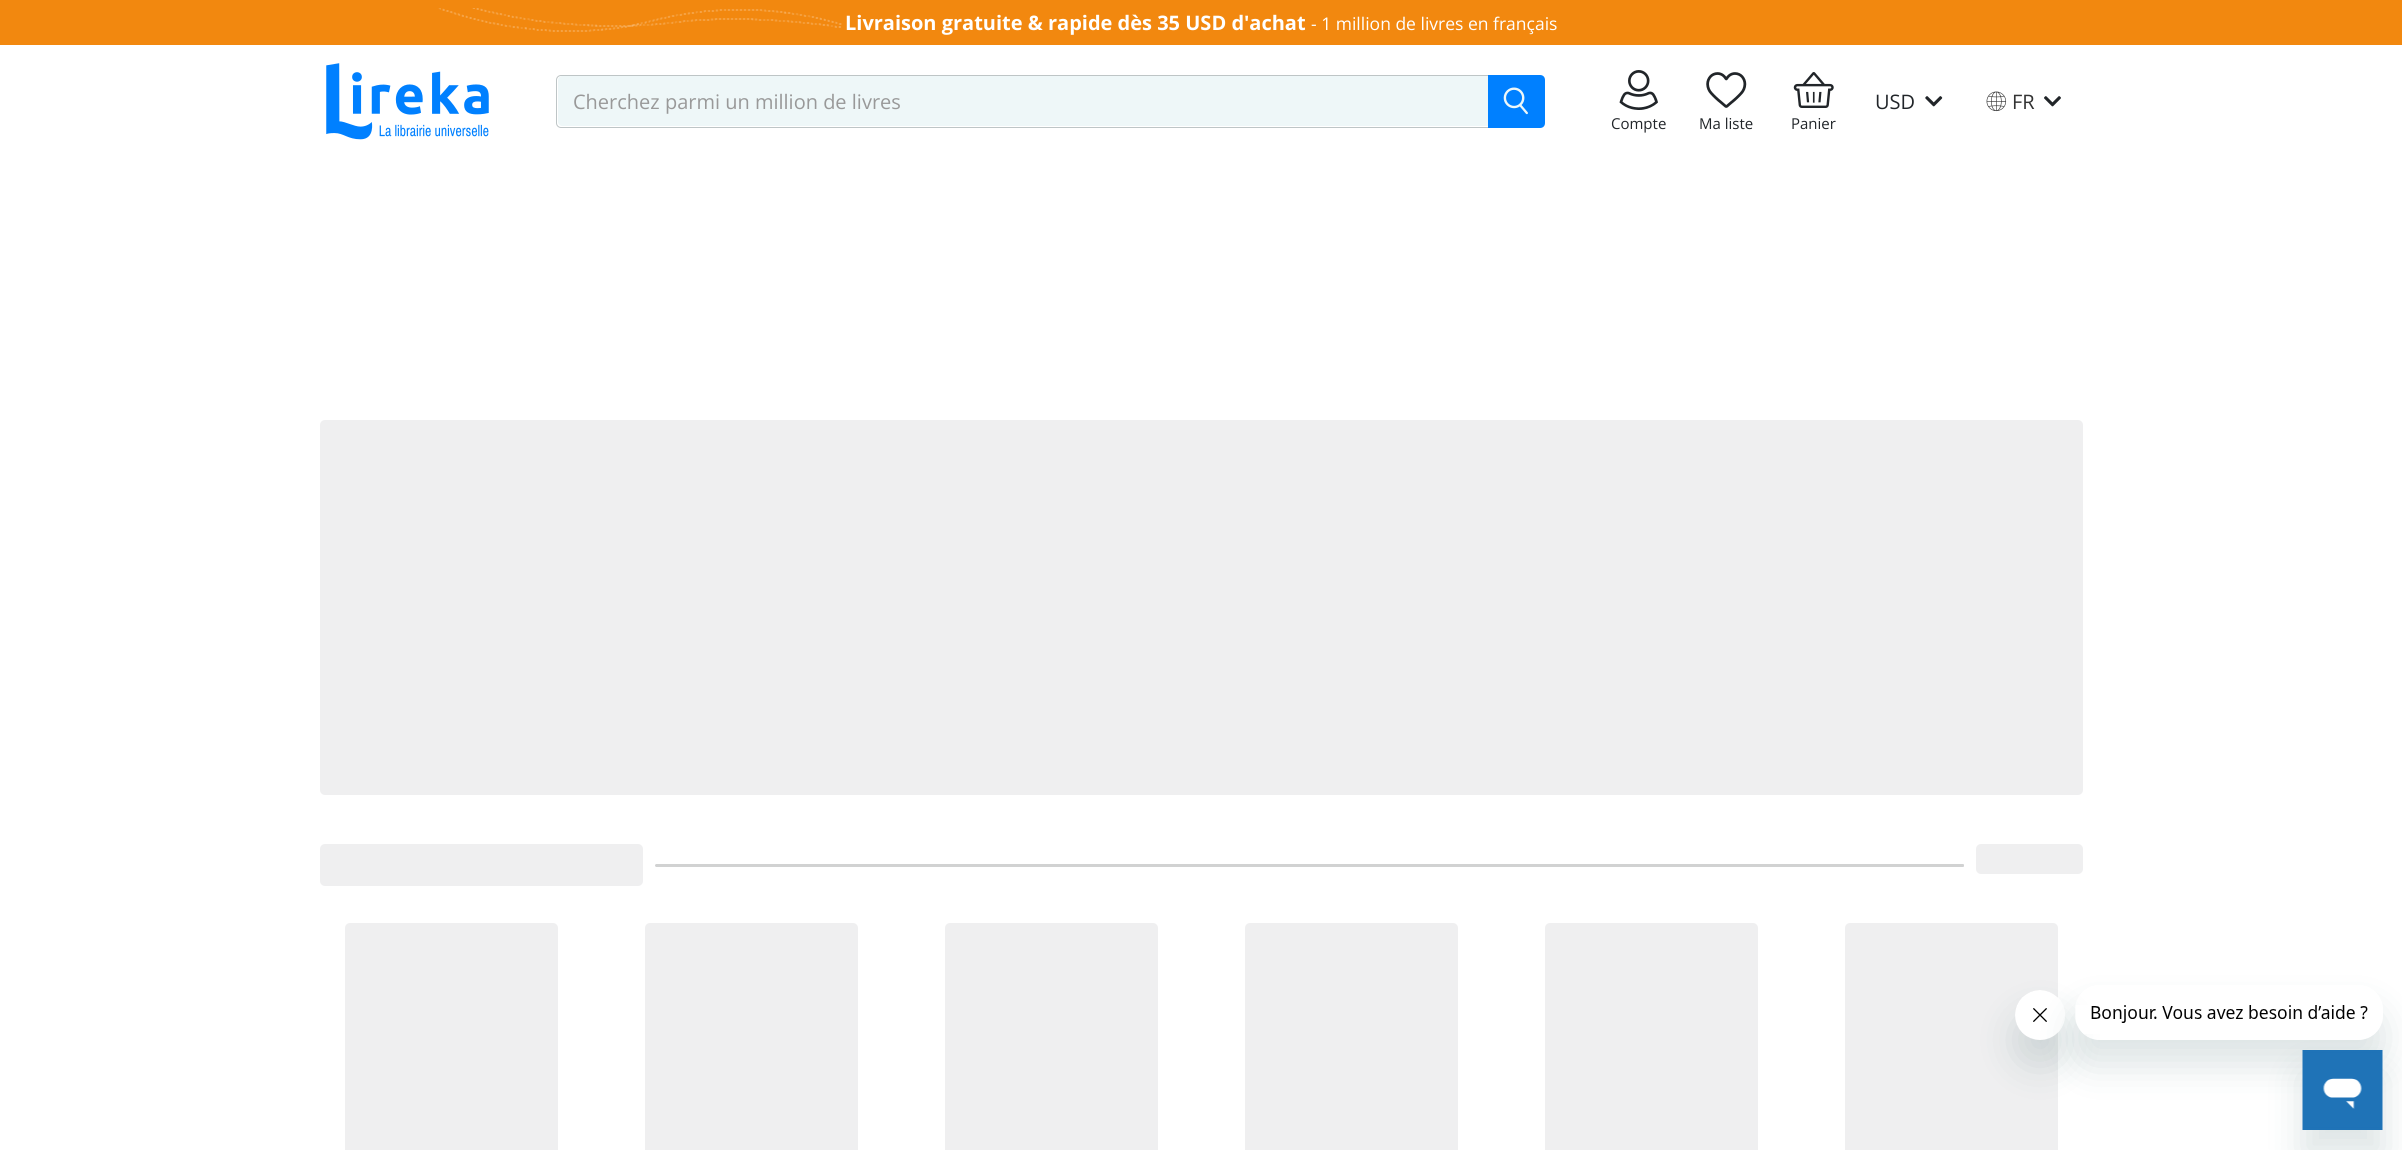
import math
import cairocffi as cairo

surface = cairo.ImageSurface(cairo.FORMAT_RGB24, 2402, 1150)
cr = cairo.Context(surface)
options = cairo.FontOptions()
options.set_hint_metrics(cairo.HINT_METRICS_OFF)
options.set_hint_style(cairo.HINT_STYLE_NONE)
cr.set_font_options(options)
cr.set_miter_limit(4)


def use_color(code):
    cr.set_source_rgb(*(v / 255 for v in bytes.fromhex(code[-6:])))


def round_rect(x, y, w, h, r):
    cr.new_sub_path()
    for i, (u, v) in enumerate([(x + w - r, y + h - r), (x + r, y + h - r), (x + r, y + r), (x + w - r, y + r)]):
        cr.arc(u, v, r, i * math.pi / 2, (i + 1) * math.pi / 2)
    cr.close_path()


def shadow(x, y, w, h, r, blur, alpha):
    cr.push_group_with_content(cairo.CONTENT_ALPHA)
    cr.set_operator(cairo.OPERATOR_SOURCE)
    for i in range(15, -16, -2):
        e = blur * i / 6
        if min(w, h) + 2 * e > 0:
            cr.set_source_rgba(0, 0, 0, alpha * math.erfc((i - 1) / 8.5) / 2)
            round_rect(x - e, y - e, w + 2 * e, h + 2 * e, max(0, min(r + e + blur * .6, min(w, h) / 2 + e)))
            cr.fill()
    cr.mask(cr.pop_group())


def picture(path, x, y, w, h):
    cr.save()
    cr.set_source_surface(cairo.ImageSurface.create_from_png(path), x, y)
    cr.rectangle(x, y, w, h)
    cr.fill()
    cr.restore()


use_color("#ffffff")
cr.paint()
use_color("#e9e9ea")
cr.rectangle(656, 864, 1308, 3)
cr.fill()
use_color("#f2880f")
cr.rectangle(0, 0, 2402, 45)
cr.fill()
picture("img1.png", 438, 8, 404, 24)
cr.select_font_face("Open Sans", cairo.FONT_SLANT_NORMAL, cairo.FONT_WEIGHT_BOLD)
cr.set_font_size(20)
use_color("#ffffff")
cr.move_to(845, 30)
cr.show_text("Livraison gratuite & rapide dès 35 USD d'achat")
cr.select_font_face("Open Sans")
cr.set_font_size(17.5)
cr.move_to(1311, 30)
cr.show_text("- 1 million de livres en français")
picture("img2.png", 326, 63, 163, 77)
use_color("#eef7f8")
cr.new_path()
cr.move_to(562, 76)
cr.line_to(1488, 76)
cr.line_to(1488, 126)
cr.line_to(562, 126)
cr.curve_to(560, 126, 558, 124, 558, 122)
cr.line_to(558, 80)
cr.curve_to(558, 78, 560, 76, 562, 76)
cr.close_path()
cr.fill()
cr.new_path()
cr.move_to(561, 75.5)
cr.line_to(1488.5, 75.5)
cr.line_to(1488.5, 127.5)
cr.line_to(561, 127.5)
cr.curve_to(558.5, 127.5, 556.5, 125.5, 556.5, 123)
cr.line_to(556.5, 80)
cr.curve_to(556.5, 77.5, 558.5, 75.5, 561, 75.5)
cr.close_path()
use_color("#bec5c6")
cr.set_line_width(1)
cr.stroke()
cr.set_font_size(20)
use_color("#999999")
cr.move_to(573, 109)
cr.show_text("Cherchez parmi un million de livres")
use_color("#0080ff")
cr.new_path()
cr.move_to(1488, 75)
cr.line_to(1540, 75)
cr.curve_to(1543, 75, 1545, 77, 1545, 80)
cr.line_to(1545, 123)
cr.curve_to(1545, 126, 1543, 128, 1540, 128)
cr.line_to(1488, 128)
cr.close_path()
cr.fill()
picture("img3.png", 1503, 87, 25, 28)
use_color("#212529")
cr.move_to(1875, 109)
cr.show_text("USD")
picture("img4.png", 1925, 96, 18, 11)
picture("img5.png", 1986, 91, 21, 21)
use_color("#333333")
cr.move_to(2012, 109)
cr.show_text("FR")
picture("img6.png", 2044, 96, 17, 11)
picture("img7.png", 1619, 70, 39, 40)
cr.set_font_size(15)
use_color("#212529")
cr.move_to(1611, 129)
cr.show_text("Compte")
picture("img8.png", 1706, 72, 41, 36)
cr.move_to(1699, 129)
cr.show_text("Ma liste")
picture("img9.png", 1793, 72, 41, 36)
cr.move_to(1791, 129)
cr.show_text("Panier")
use_color("#efeff0")
round_rect(320, 420, 1763, 375, 5)
cr.fill()
round_rect(320, 844, 323, 42, 5)
cr.fill()
use_color("#d1d2d2")
round_rect(655, 864, 1309, 3, 1.5)
cr.fill()
use_color("#efeff0")
round_rect(1976, 844, 107, 30, 5)
cr.fill()
round_rect(345, 923, 213, 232, 5)
cr.fill()
round_rect(645, 923, 213, 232, 5)
cr.fill()
round_rect(945, 923, 213, 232, 5)
cr.fill()
round_rect(1245, 923, 213, 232, 5)
cr.fill()
round_rect(1545, 923, 213, 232, 5)
cr.fill()
round_rect(1845, 923, 213, 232, 5)
cr.fill()
cr.save()
cr.set_fill_rule(cairo.FILL_RULE_EVEN_ODD)
cr.new_path()
cr.move_to(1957, 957)
cr.line_to(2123, 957)
cr.line_to(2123, 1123)
cr.line_to(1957, 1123)
cr.close_path()
cr.move_to(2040, 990)
cr.curve_to(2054, 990, 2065, 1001, 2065, 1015)
cr.curve_to(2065, 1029, 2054, 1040, 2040, 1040)
cr.curve_to(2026, 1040, 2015, 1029, 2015, 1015)
cr.curve_to(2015, 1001, 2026, 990, 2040, 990)
cr.close_path()
cr.clip()
use_color("#17494d")
shadow(2015, 1015, 50, 50, 25, 19, 0.15)
cr.restore()
picture("img11.png", 2015, 990, 43, 50)
cr.save()
cr.set_fill_rule(cairo.FILL_RULE_EVEN_ODD)
cr.new_path()
cr.move_to(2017, 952)
cr.line_to(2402, 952)
cr.line_to(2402, 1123)
cr.line_to(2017, 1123)
cr.close_path()
cr.move_to(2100, 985)
cr.line_to(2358, 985)
cr.curve_to(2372, 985, 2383, 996, 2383, 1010)
cr.line_to(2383, 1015)
cr.curve_to(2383, 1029, 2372, 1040, 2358, 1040)
cr.line_to(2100, 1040)
cr.curve_to(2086, 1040, 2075, 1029, 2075, 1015)
cr.line_to(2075, 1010)
cr.curve_to(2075, 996, 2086, 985, 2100, 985)
cr.close_path()
cr.clip()
use_color("#17494d")
shadow(2075, 1010, 308, 55, 25, 19, 0.15)
cr.restore()
picture("img10.png", 2076, 1005, 292, 29)
use_color("#17494d")
shadow(2303, 1075, 80, 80, 0, 19, 0.15)
picture("img12.png", 2302, 1050, 81, 80)
surface.write_to_png("result.png")
